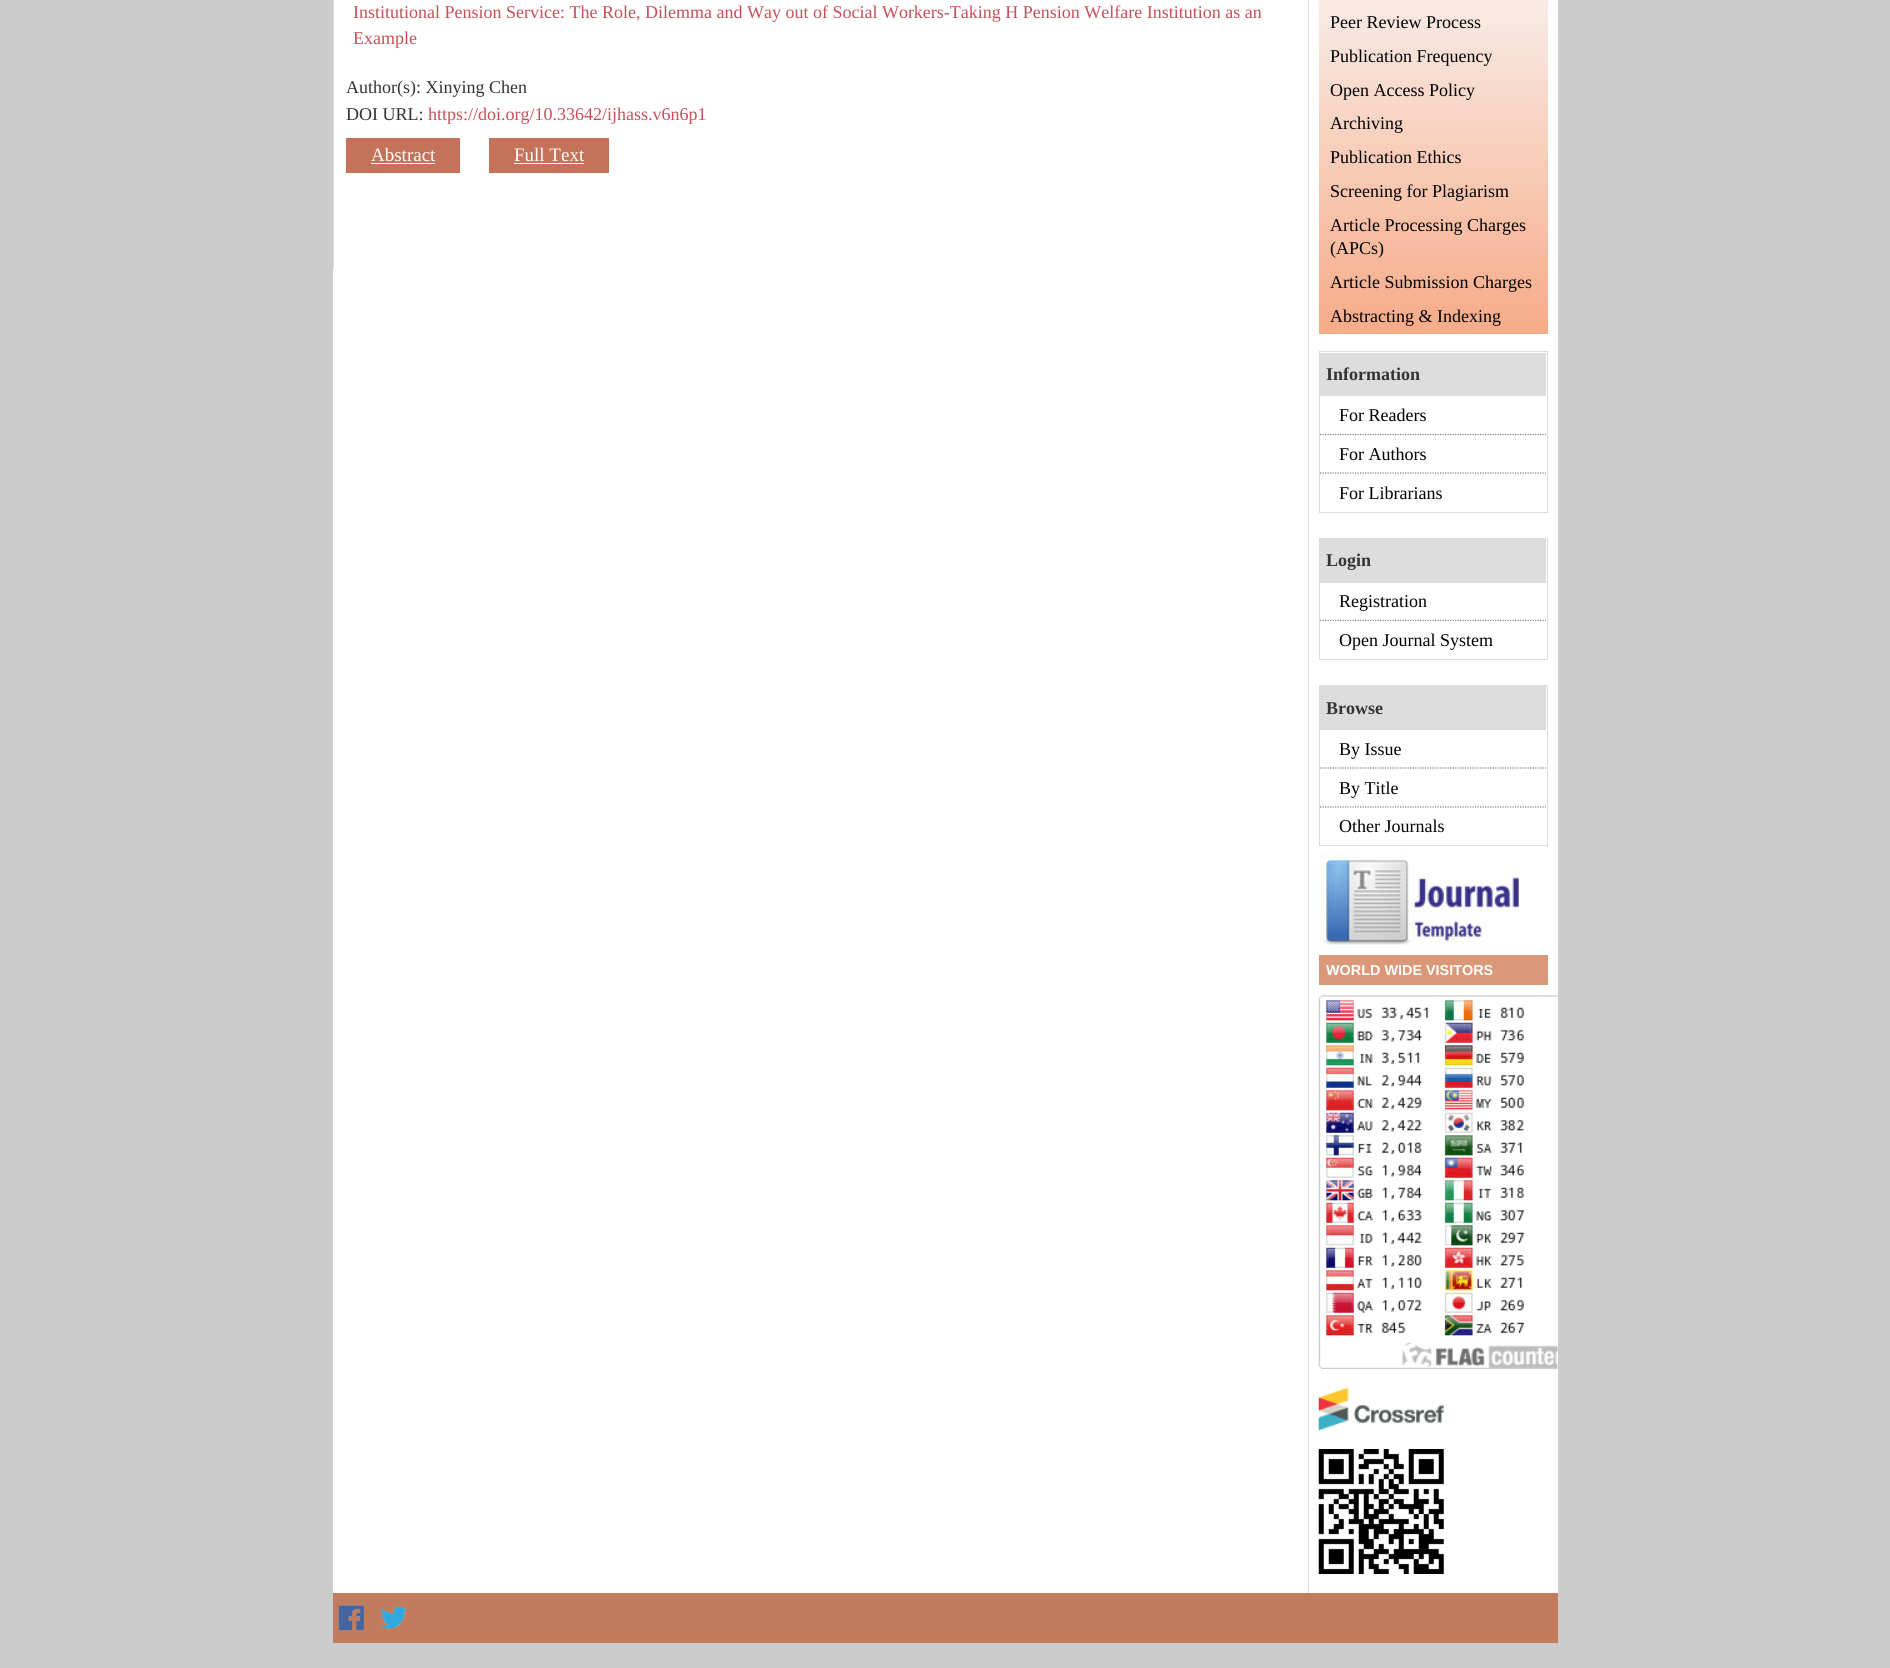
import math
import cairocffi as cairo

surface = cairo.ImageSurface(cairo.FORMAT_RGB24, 1890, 1668)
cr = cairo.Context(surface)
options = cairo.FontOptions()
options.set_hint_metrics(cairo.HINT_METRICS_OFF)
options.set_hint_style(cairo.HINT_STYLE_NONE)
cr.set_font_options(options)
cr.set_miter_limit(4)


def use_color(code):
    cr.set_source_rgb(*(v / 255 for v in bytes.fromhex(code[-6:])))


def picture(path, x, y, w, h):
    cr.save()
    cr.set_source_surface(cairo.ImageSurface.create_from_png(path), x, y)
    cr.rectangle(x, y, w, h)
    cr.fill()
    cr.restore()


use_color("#cccccc")
cr.paint()
use_color("#ffffff")
cr.rectangle(333, 0, 1225, 1593)
cr.fill()
use_color("#dddddd")
cr.rectangle(333, 0, 1, 269)
cr.fill()
cr.select_font_face("Liberation Serif")
cr.set_font_size(18)
use_color("#c84f58")
cr.move_to(353, 18)
cr.show_text("Institutional Pension Service: The Role, Dilemma and Way out of Social Workers-Taking H Pension Welfare Institution as an")
cr.move_to(353, 44)
cr.show_text("Example")
use_color("#333333")
cr.move_to(346, 93)
cr.show_text("Author(s): Xinying Chen")
cr.move_to(346, 120)
cr.show_text("DOI URL:")
use_color("#c84f58")
cr.move_to(428, 120)
cr.show_text("https://doi.org/10.33642/ijhass.v6n6p1")
use_color("#c6715a")
cr.rectangle(346, 138, 114, 35)
cr.fill()
cr.set_font_size(19)
use_color("#ffffff")
cr.move_to(371, 161)
cr.show_text("Abstract")
cr.rectangle(371, 163, 64, 1)
cr.fill()
use_color("#c6715a")
cr.rectangle(489, 138, 120, 35)
cr.fill()
use_color("#ffffff")
cr.move_to(514, 161)
cr.show_text("Full Text")
cr.rectangle(514, 163, 70, 1)
cr.fill()
use_color("#dddddd")
cr.rectangle(1308, 0, 1, 1593)
cr.fill()
gradient = cairo.LinearGradient(1433, -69, 1433, 334)
gradient.add_color_stop_rgba(0, 0.976, 0.976, 0.976, 1)
gradient.add_color_stop_rgba(1, 0.969, 0.671, 0.533, 1)
cr.set_source(gradient)
cr.rectangle(1319, 0, 229, 334)
cr.fill()
cr.set_font_size(18)
use_color("#000000")
cr.move_to(1330, 28)
cr.show_text("Peer Review Process")
cr.move_to(1330, 62)
cr.show_text("Publication Frequency")
cr.move_to(1330, 96)
cr.show_text("Open Access Policy")
cr.move_to(1330, 129)
cr.show_text("Archiving")
cr.move_to(1330, 163)
cr.show_text("Publication Ethics")
cr.move_to(1330, 197)
cr.show_text("Screening for Plagiarism")
cr.move_to(1330, 231)
cr.show_text("Article Processing Charges")
cr.move_to(1330, 254)
cr.show_text("(APCs)")
cr.move_to(1330, 288)
cr.show_text("Article Submission Charges")
cr.move_to(1330, 322)
cr.show_text("Abstracting & Indexing")
cr.rectangle(1319.5, 351.5, 228, 161)
use_color("#dddddd")
cr.set_line_width(1)
cr.stroke()
cr.rectangle(1320, 353, 226, 43)
cr.fill()
cr.select_font_face("Liberation Serif", cairo.FONT_SLANT_NORMAL, cairo.FONT_WEIGHT_BOLD)
use_color("#333333")
cr.move_to(1326, 380)
cr.show_text("Information")
cr.new_path()
cr.move_to(1320, 434.5)
cr.line_to(1546, 434.5)
use_color("#808080")
cr.set_line_width(1.2)
cr.set_dash([1.25, 1.25])
cr.stroke()
cr.select_font_face("Liberation Serif")
use_color("#000000")
cr.move_to(1339, 421)
cr.show_text("For Readers")
cr.new_path()
cr.move_to(1320, 473)
cr.line_to(1546, 473)
use_color("#808080")
cr.stroke()
use_color("#000000")
cr.move_to(1339, 460)
cr.show_text("For Authors")
cr.move_to(1339, 499)
cr.show_text("For Librarians")
cr.rectangle(1319.5, 538.5, 228, 121)
use_color("#dddddd")
cr.set_line_width(1)
cr.set_dash([])
cr.stroke()
cr.rectangle(1320, 539, 226, 44)
cr.fill()
cr.select_font_face("Liberation Serif", cairo.FONT_SLANT_NORMAL, cairo.FONT_WEIGHT_BOLD)
use_color("#333333")
cr.move_to(1326, 566)
cr.show_text("Login")
cr.new_path()
cr.move_to(1320, 620.5)
cr.line_to(1546, 620.5)
use_color("#808080")
cr.set_line_width(1.2)
cr.set_dash([1.25, 1.25])
cr.stroke()
cr.select_font_face("Liberation Serif")
use_color("#000000")
cr.move_to(1339, 607)
cr.show_text("Registration")
cr.move_to(1339, 646)
cr.show_text("Open Journal System")
cr.rectangle(1319.5, 685.5, 228, 160)
use_color("#dddddd")
cr.set_line_width(1)
cr.set_dash([])
cr.stroke()
cr.rectangle(1320, 686, 226, 44)
cr.fill()
cr.select_font_face("Liberation Serif", cairo.FONT_SLANT_NORMAL, cairo.FONT_WEIGHT_BOLD)
use_color("#333333")
cr.move_to(1326, 714)
cr.show_text("Browse")
cr.new_path()
cr.move_to(1320, 768)
cr.line_to(1546, 768)
use_color("#808080")
cr.set_line_width(1.2)
cr.set_dash([1.25, 1.25])
cr.stroke()
cr.select_font_face("Liberation Serif")
use_color("#000000")
cr.move_to(1339, 755)
cr.show_text("By Issue")
cr.new_path()
cr.move_to(1320, 807)
cr.line_to(1546, 807)
use_color("#808080")
cr.stroke()
use_color("#000000")
cr.move_to(1339, 794)
cr.show_text("By Title")
cr.move_to(1339, 832)
cr.show_text("Other Journals")
picture("img1.png", 1319, 853, 200, 92)
use_color("#db9878")
cr.rectangle(1319, 955, 229, 30)
cr.fill()
cr.select_font_face("Liberation Sans", cairo.FONT_SLANT_NORMAL, cairo.FONT_WEIGHT_BOLD)
cr.set_font_size(14.4)
use_color("#ffffff")
cr.move_to(1326, 975)
cr.show_text("WORLD WIDE VISITORS")
picture("img2.png", 1318, 995, 240, 374)
picture("img3.png", 1318, 1387, 126, 44)
picture("img4.png", 1318, 1449, 126, 125)
use_color("#c07c5c")
cr.rectangle(333, 1593, 1225, 50)
cr.fill()
picture("img5.png", 338, 1605, 26, 26)
picture("img6.png", 381, 1606, 26, 23)
surface.write_to_png("result.png")
